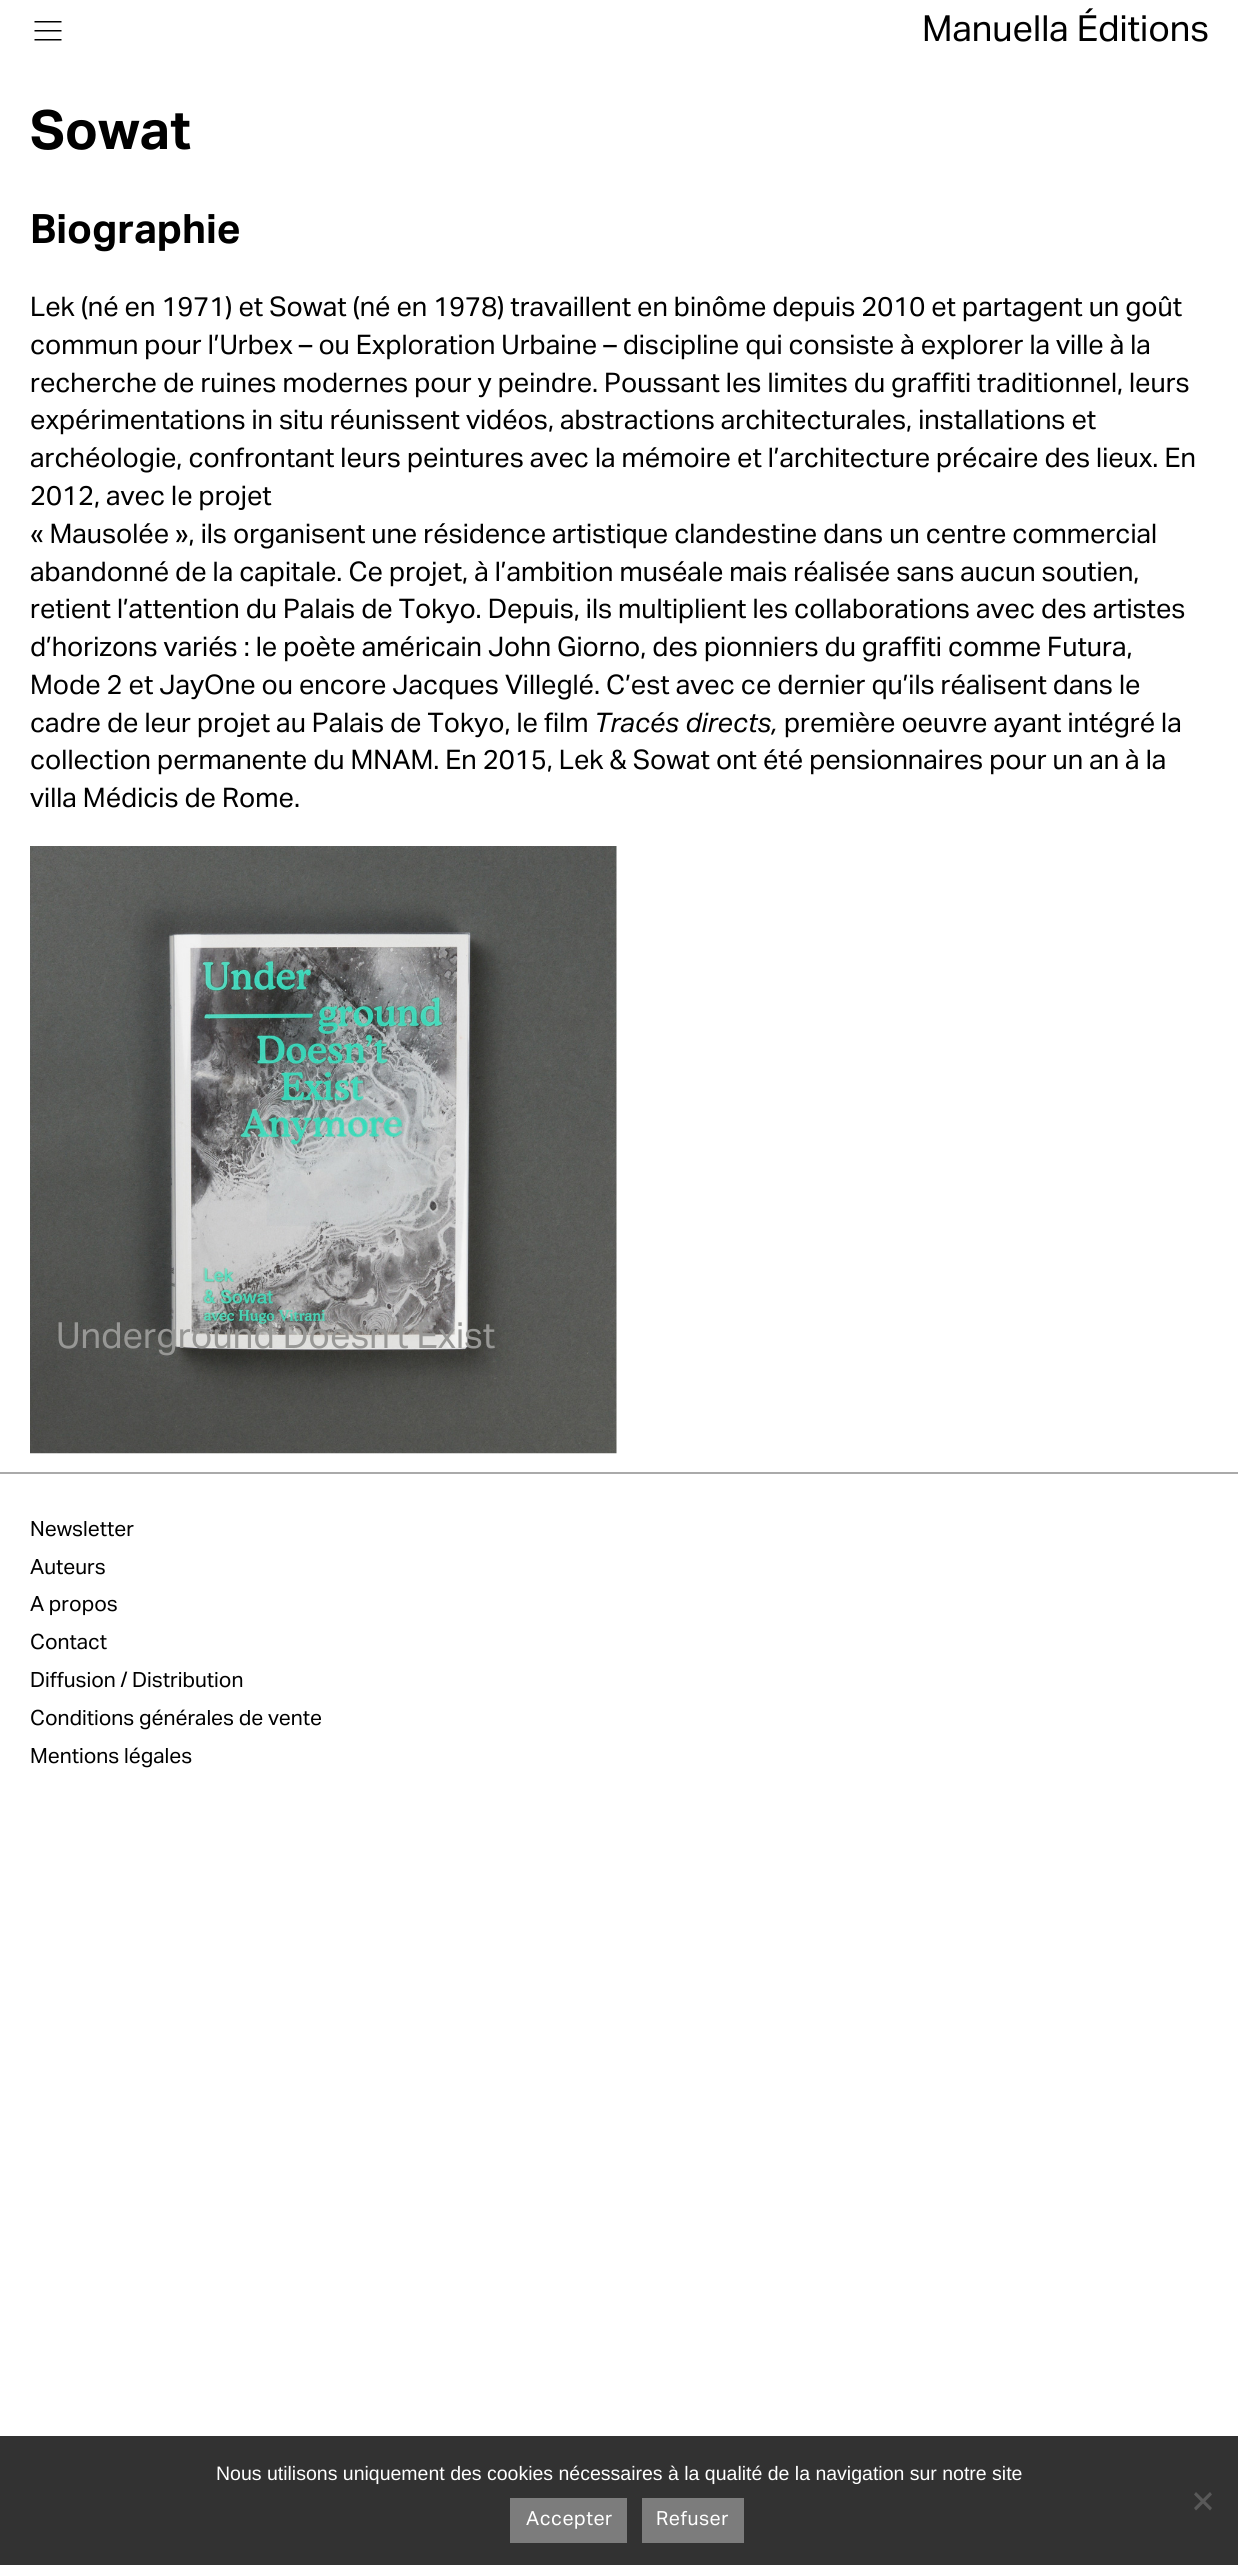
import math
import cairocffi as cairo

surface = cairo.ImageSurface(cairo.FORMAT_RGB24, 1238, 2565)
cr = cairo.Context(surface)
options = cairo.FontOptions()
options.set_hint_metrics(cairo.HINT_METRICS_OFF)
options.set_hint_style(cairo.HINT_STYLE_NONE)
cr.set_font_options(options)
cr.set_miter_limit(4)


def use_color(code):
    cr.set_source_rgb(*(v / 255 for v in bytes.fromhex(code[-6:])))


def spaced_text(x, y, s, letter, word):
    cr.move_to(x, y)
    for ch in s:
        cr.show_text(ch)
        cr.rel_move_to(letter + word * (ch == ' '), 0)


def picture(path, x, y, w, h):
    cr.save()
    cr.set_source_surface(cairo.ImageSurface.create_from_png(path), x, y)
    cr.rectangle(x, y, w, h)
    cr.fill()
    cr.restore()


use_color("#ffffff")
cr.paint()
picture("img1.png", 34, 21, 28, 20)
cr.select_font_face("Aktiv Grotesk")
cr.set_font_size(36)
use_color("#000000")
cr.move_to(922, 41)
cr.show_text("Manuella Éditions")
cr.select_font_face("Aktiv Grotesk", cairo.FONT_SLANT_NORMAL, cairo.FONT_WEIGHT_BOLD)
cr.set_font_size(54)
cr.move_to(30, 149)
cr.show_text("Sowat")
cr.set_font_size(40.5)
cr.move_to(30, 243)
cr.show_text("Biographie")
cr.select_font_face("Aktiv Grotesk")
cr.set_font_size(27)
cr.move_to(30, 316)
cr.show_text("Lek (né en 1971) et Sowat (né en 1978) travaillent en binôme depuis 2010 et partagent un goût")
cr.move_to(30, 354)
cr.show_text("commun pour l’Urbex – ou Exploration Urbaine – discipline qui consiste à explorer la ville à la")
cr.move_to(30, 392)
cr.show_text("recherche de ruines modernes pour y peindre. Poussant les limites du graffiti traditionnel, leurs")
cr.move_to(30, 429)
cr.show_text("expérimentations in situ réunissent vidéos, abstractions architecturales, installations et")
cr.move_to(30, 467)
cr.show_text("archéologie, confrontant leurs peintures avec la mémoire et l’architecture précaire des lieux. En")
cr.move_to(30, 505)
cr.show_text("2012, avec le projet")
cr.move_to(30, 543)
cr.show_text("« Mausolée », ils organisent une résidence artistique clandestine dans un centre commercial")
cr.move_to(30, 581)
cr.show_text("abandonné de la capitale. Ce projet, à l’ambition muséale mais réalisée sans aucun soutien,")
cr.move_to(30, 618)
cr.show_text("retient l’attention du Palais de Tokyo. Depuis, ils multiplient les collaborations avec des artistes")
cr.move_to(30, 656)
cr.show_text("d’horizons variés : le poète américain John Giorno, des pionniers du graffiti comme Futura,")
cr.move_to(30, 694)
cr.show_text("Mode 2 et JayOne ou encore Jacques Villeglé. C’est avec ce dernier qu’ils réalisent dans le")
cr.move_to(30, 732)
cr.show_text("cadre de leur projet au Palais de Tokyo, le film")
cr.select_font_face("Aktiv Grotesk", cairo.FONT_SLANT_ITALIC)
cr.move_to(594, 732)
cr.show_text("Tracés directs,")
cr.select_font_face("Aktiv Grotesk")
cr.move_to(784, 732)
cr.show_text("première oeuvre ayant intégré la")
cr.move_to(30, 769)
cr.show_text("collection permanente du MNAM. En 2015, Lek & Sowat ont été pensionnaires pour un an à la")
cr.move_to(30, 807)
cr.show_text("villa Médicis de Rome.")
picture("img2.png", 30, 846, 587, 608)
cr.set_font_size(36)
use_color("#979795")
cr.move_to(56, 1348)
cr.show_text("Underground Doesn't Exist")
use_color("#aaaaaa")
cr.rectangle(0, 1472, 1238, 2)
cr.fill()
cr.set_font_size(21)
use_color("#000000")
cr.move_to(30, 1536)
cr.show_text("Newsletter")
cr.move_to(30, 1574)
cr.show_text("Auteurs")
cr.move_to(30, 1611)
cr.show_text("A propos")
cr.move_to(30, 1649)
cr.show_text("Contact")
cr.move_to(30, 1687)
cr.show_text("Diffusion / Distribution")
cr.move_to(30, 1725)
cr.show_text("Conditions générales de vente")
cr.move_to(30, 1763)
cr.show_text("Mentions légales")
use_color("#323232")
cr.rectangle(0, 2436, 1238, 129)
cr.fill()
cr.select_font_face("Liberation Sans")
cr.set_font_size(19.5)
use_color("#ffffff")
cr.move_to(216, 2480)
cr.show_text("Nous utilisons uniquement des cookies nécessaires à la qualité de la navigation sur notre site")
use_color("#595959")
cr.new_path()
cr.move_to(1210, 2492)
cr.line_to(1212, 2494.5)
cr.line_to(1196, 2510.5)
cr.line_to(1194, 2508)
cr.close_path()
cr.fill()
cr.new_path()
cr.move_to(1194, 2494.5)
cr.line_to(1196, 2492)
cr.line_to(1212, 2508)
cr.line_to(1210, 2510.5)
cr.close_path()
cr.fill()
use_color("#7c7c7c")
cr.rectangle(510, 2498, 117, 45)
cr.fill()
cr.select_font_face("Aktiv Grotesk")
use_color("#ffffff")
spaced_text(526, 2525, "Accepter", 0.5, 0)
use_color("#7c7c7c")
cr.rectangle(642, 2498, 102, 45)
cr.fill()
use_color("#ffffff")
spaced_text(656, 2525, "Refuser", 0.5, 0)
surface.write_to_png("result.png")
